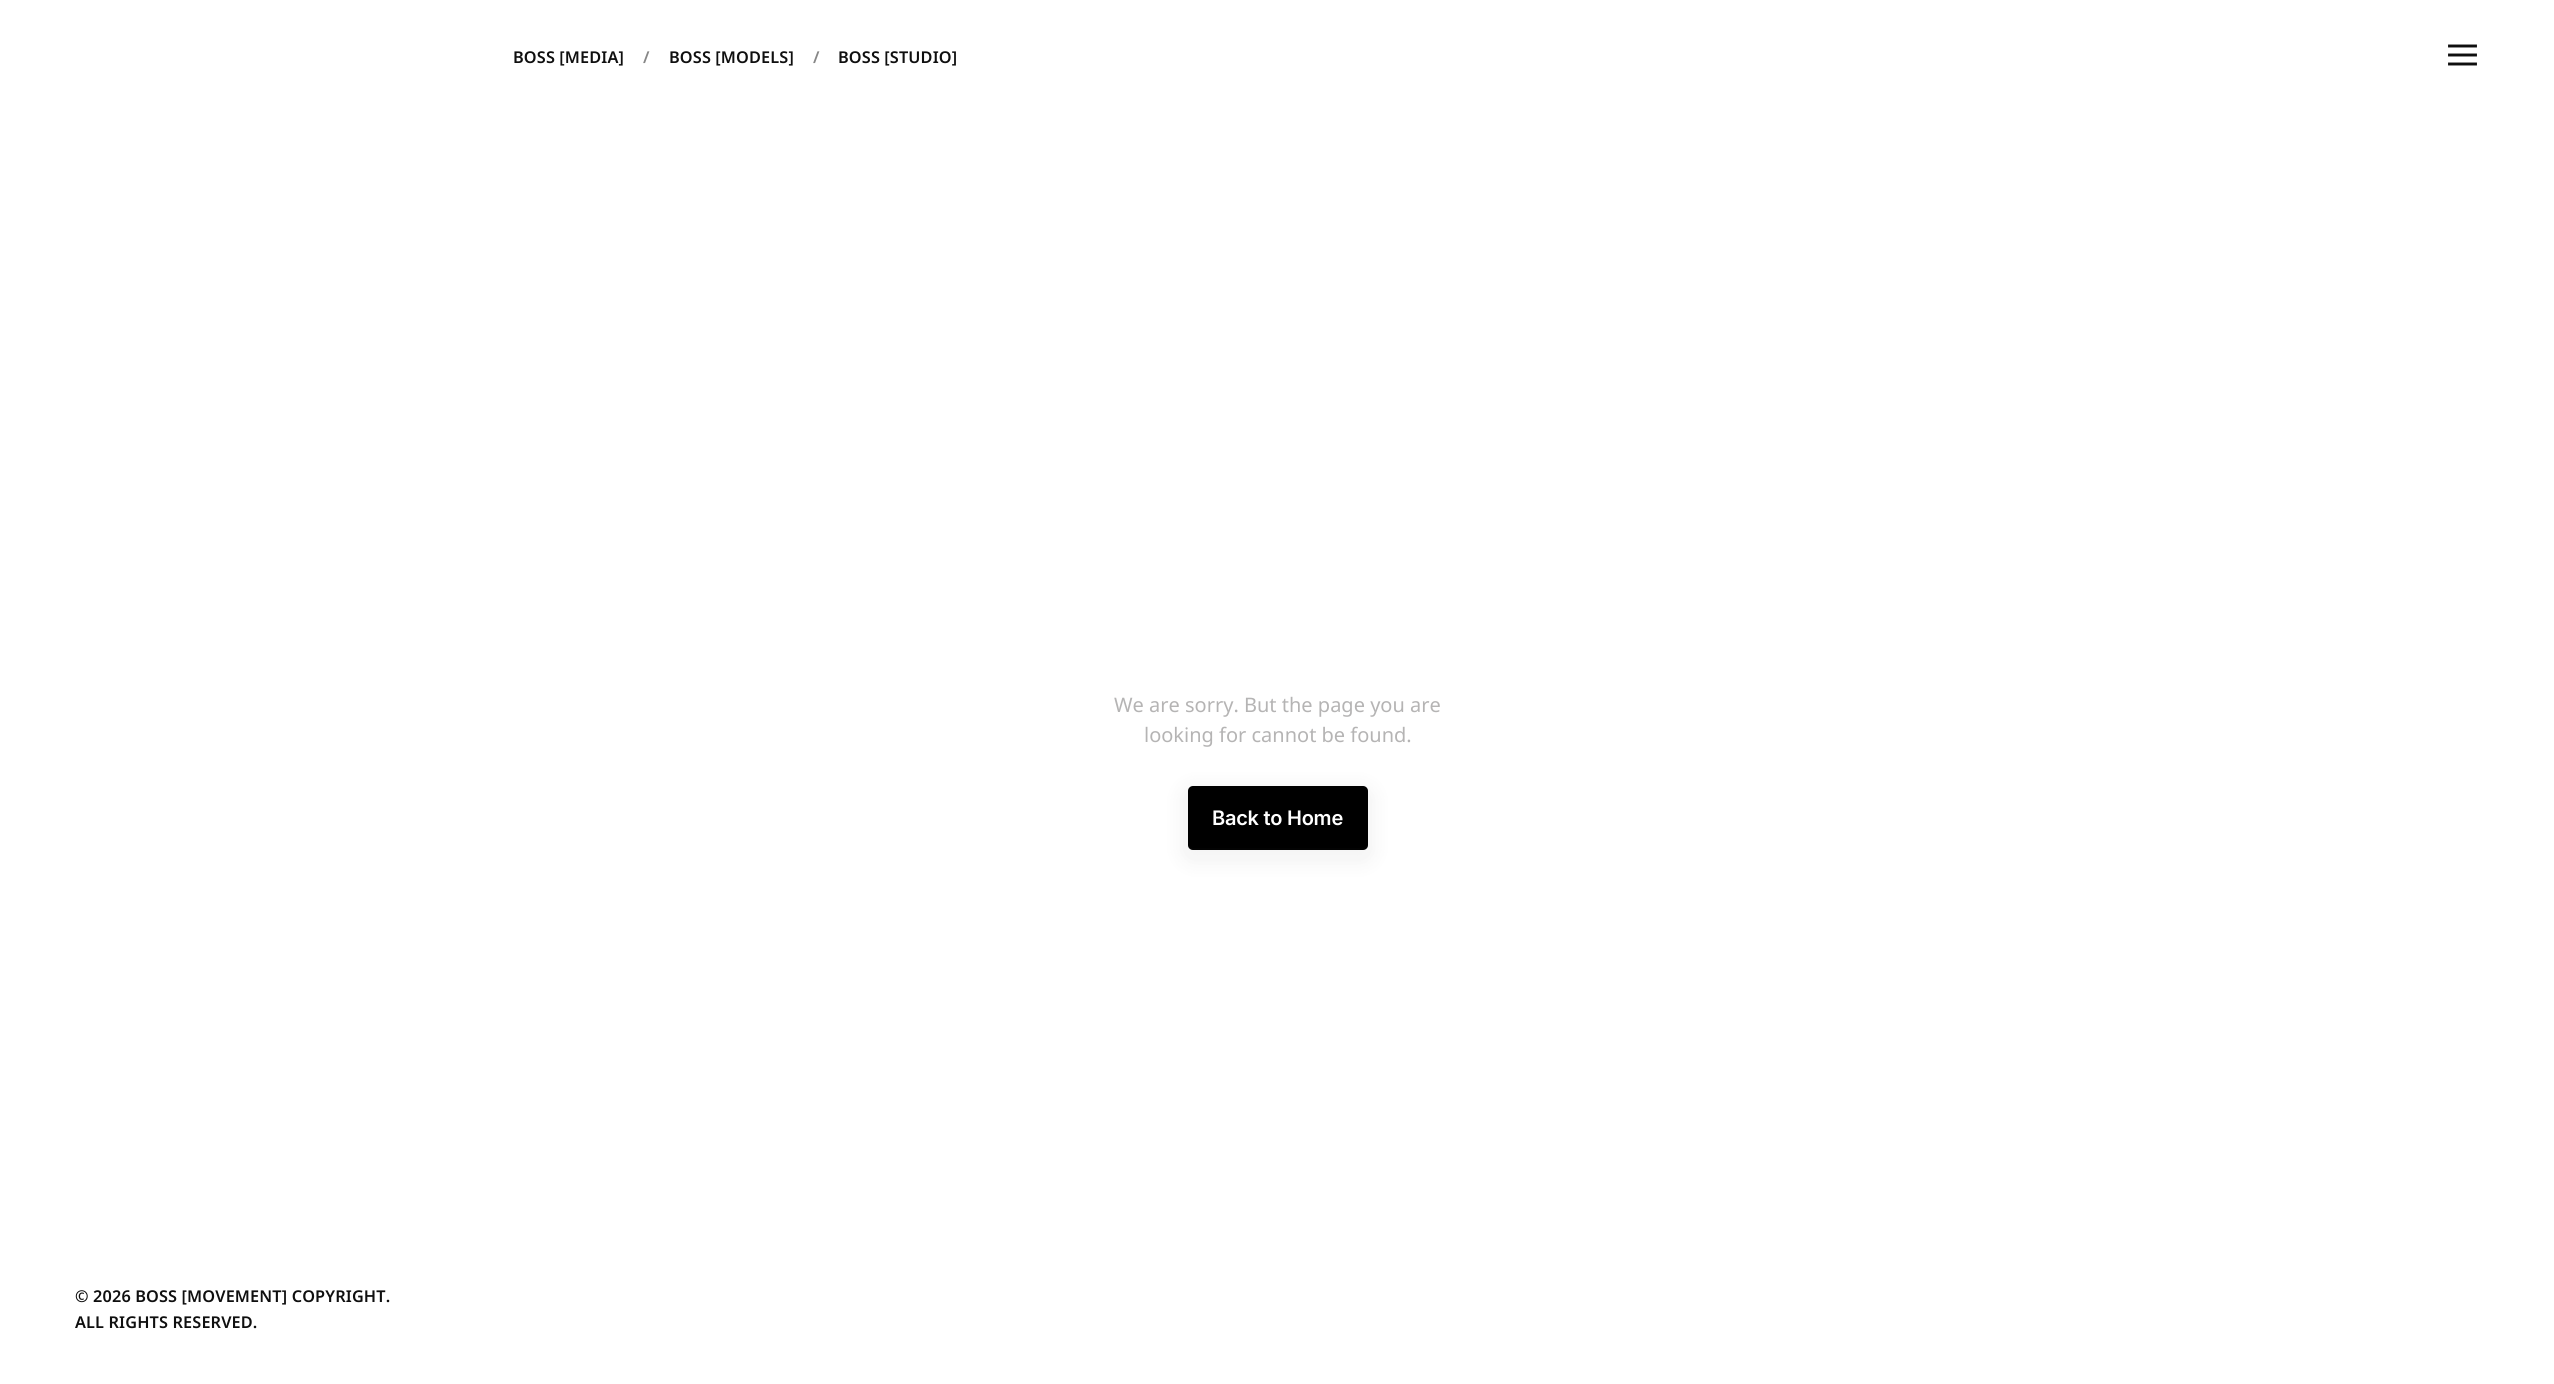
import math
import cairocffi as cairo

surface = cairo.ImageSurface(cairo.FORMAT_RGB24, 2554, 1384)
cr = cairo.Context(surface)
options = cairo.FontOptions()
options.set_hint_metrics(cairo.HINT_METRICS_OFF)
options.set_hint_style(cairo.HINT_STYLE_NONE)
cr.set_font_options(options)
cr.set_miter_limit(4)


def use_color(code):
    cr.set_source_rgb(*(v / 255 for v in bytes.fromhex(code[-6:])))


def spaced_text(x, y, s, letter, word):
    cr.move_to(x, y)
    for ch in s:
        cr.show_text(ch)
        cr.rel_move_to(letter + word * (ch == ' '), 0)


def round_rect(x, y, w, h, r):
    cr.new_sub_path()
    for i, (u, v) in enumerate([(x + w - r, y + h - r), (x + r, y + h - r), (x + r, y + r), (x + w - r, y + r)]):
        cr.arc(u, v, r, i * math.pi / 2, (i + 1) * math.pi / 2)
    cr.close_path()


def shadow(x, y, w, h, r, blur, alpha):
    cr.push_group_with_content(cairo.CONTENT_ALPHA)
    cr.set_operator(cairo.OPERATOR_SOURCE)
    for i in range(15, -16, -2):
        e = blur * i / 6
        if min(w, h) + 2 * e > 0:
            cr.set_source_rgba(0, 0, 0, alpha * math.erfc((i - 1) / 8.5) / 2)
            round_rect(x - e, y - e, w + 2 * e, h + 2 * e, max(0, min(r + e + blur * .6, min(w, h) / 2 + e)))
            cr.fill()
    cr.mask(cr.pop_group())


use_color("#ffffff")
cr.paint()
cr.select_font_face("Noto Sans SemiBold")
cr.set_font_size(16.25)
use_color("#0f0f0f")
spaced_text(513, 63, "BOSS [MEDIA]", 0.15, 0)
use_color("#878787")
spaced_text(643, 63, "/", 0.15, 0)
use_color("#0f0f0f")
spaced_text(669, 63, "BOSS [MODELS]", 0.15, 0)
use_color("#878787")
spaced_text(813, 63, "/", 0.15, 0)
use_color("#0f0f0f")
spaced_text(838, 63, "BOSS [STUDIO]", 0.15, 0)
cr.new_path()
cr.move_to(2449.5, 55)
cr.line_to(2475.5, 55)
cr.move_to(2449.5, 46)
cr.line_to(2475.5, 46)
cr.move_to(2449.5, 64)
cr.line_to(2475.5, 64)
cr.set_line_width(2.9)
cr.set_line_cap(cairo.LINE_CAP_SQUARE)
cr.set_line_join(cairo.LINE_JOIN_ROUND)
cr.stroke()
cr.select_font_face("Noto Sans")
cr.set_font_size(20)
use_color("#b5b4b4")
cr.move_to(1114, 712)
cr.show_text("We are sorry. But the page you are")
cr.move_to(1144, 742)
cr.show_text("looking for cannot be found.")
use_color("#0f0f0f")
shadow(1181, 786, 193, 77, 11, 9.5, 0.05)
use_color("#000000")
round_rect(1188, 786, 180, 64, 5)
cr.fill()
cr.set_source_rgba(0.059, 0.059, 0.059, 0.2)
cr.new_path()
cr.move_to(1188, 842)
cr.line_to(1188, 845)
cr.curve_to(1188, 848, 1190, 850, 1193, 850)
cr.line_to(1363, 850)
cr.curve_to(1366, 850, 1368, 848, 1368, 845)
cr.line_to(1368, 842)
cr.curve_to(1368, 845, 1365, 848, 1362, 848)
cr.line_to(1192, 848)
cr.curve_to(1190, 848, 1188, 845, 1188, 842)
cr.close_path()
cr.fill()
cr.select_font_face("Inter SemiBold")
use_color("#ffffff")
spaced_text(1212, 825, "Back to Home", -0.25, 0)
cr.select_font_face("Noto Sans SemiBold")
cr.set_font_size(16.25)
use_color("#0f0f0f")
spaced_text(75, 1302, "© 2026 BOSS [MOVEMENT] COPYRIGHT.", 0.15, 0)
spaced_text(75, 1328, "ALL RIGHTS RESERVED.", 0.15, 0)
surface.write_to_png("result.png")
